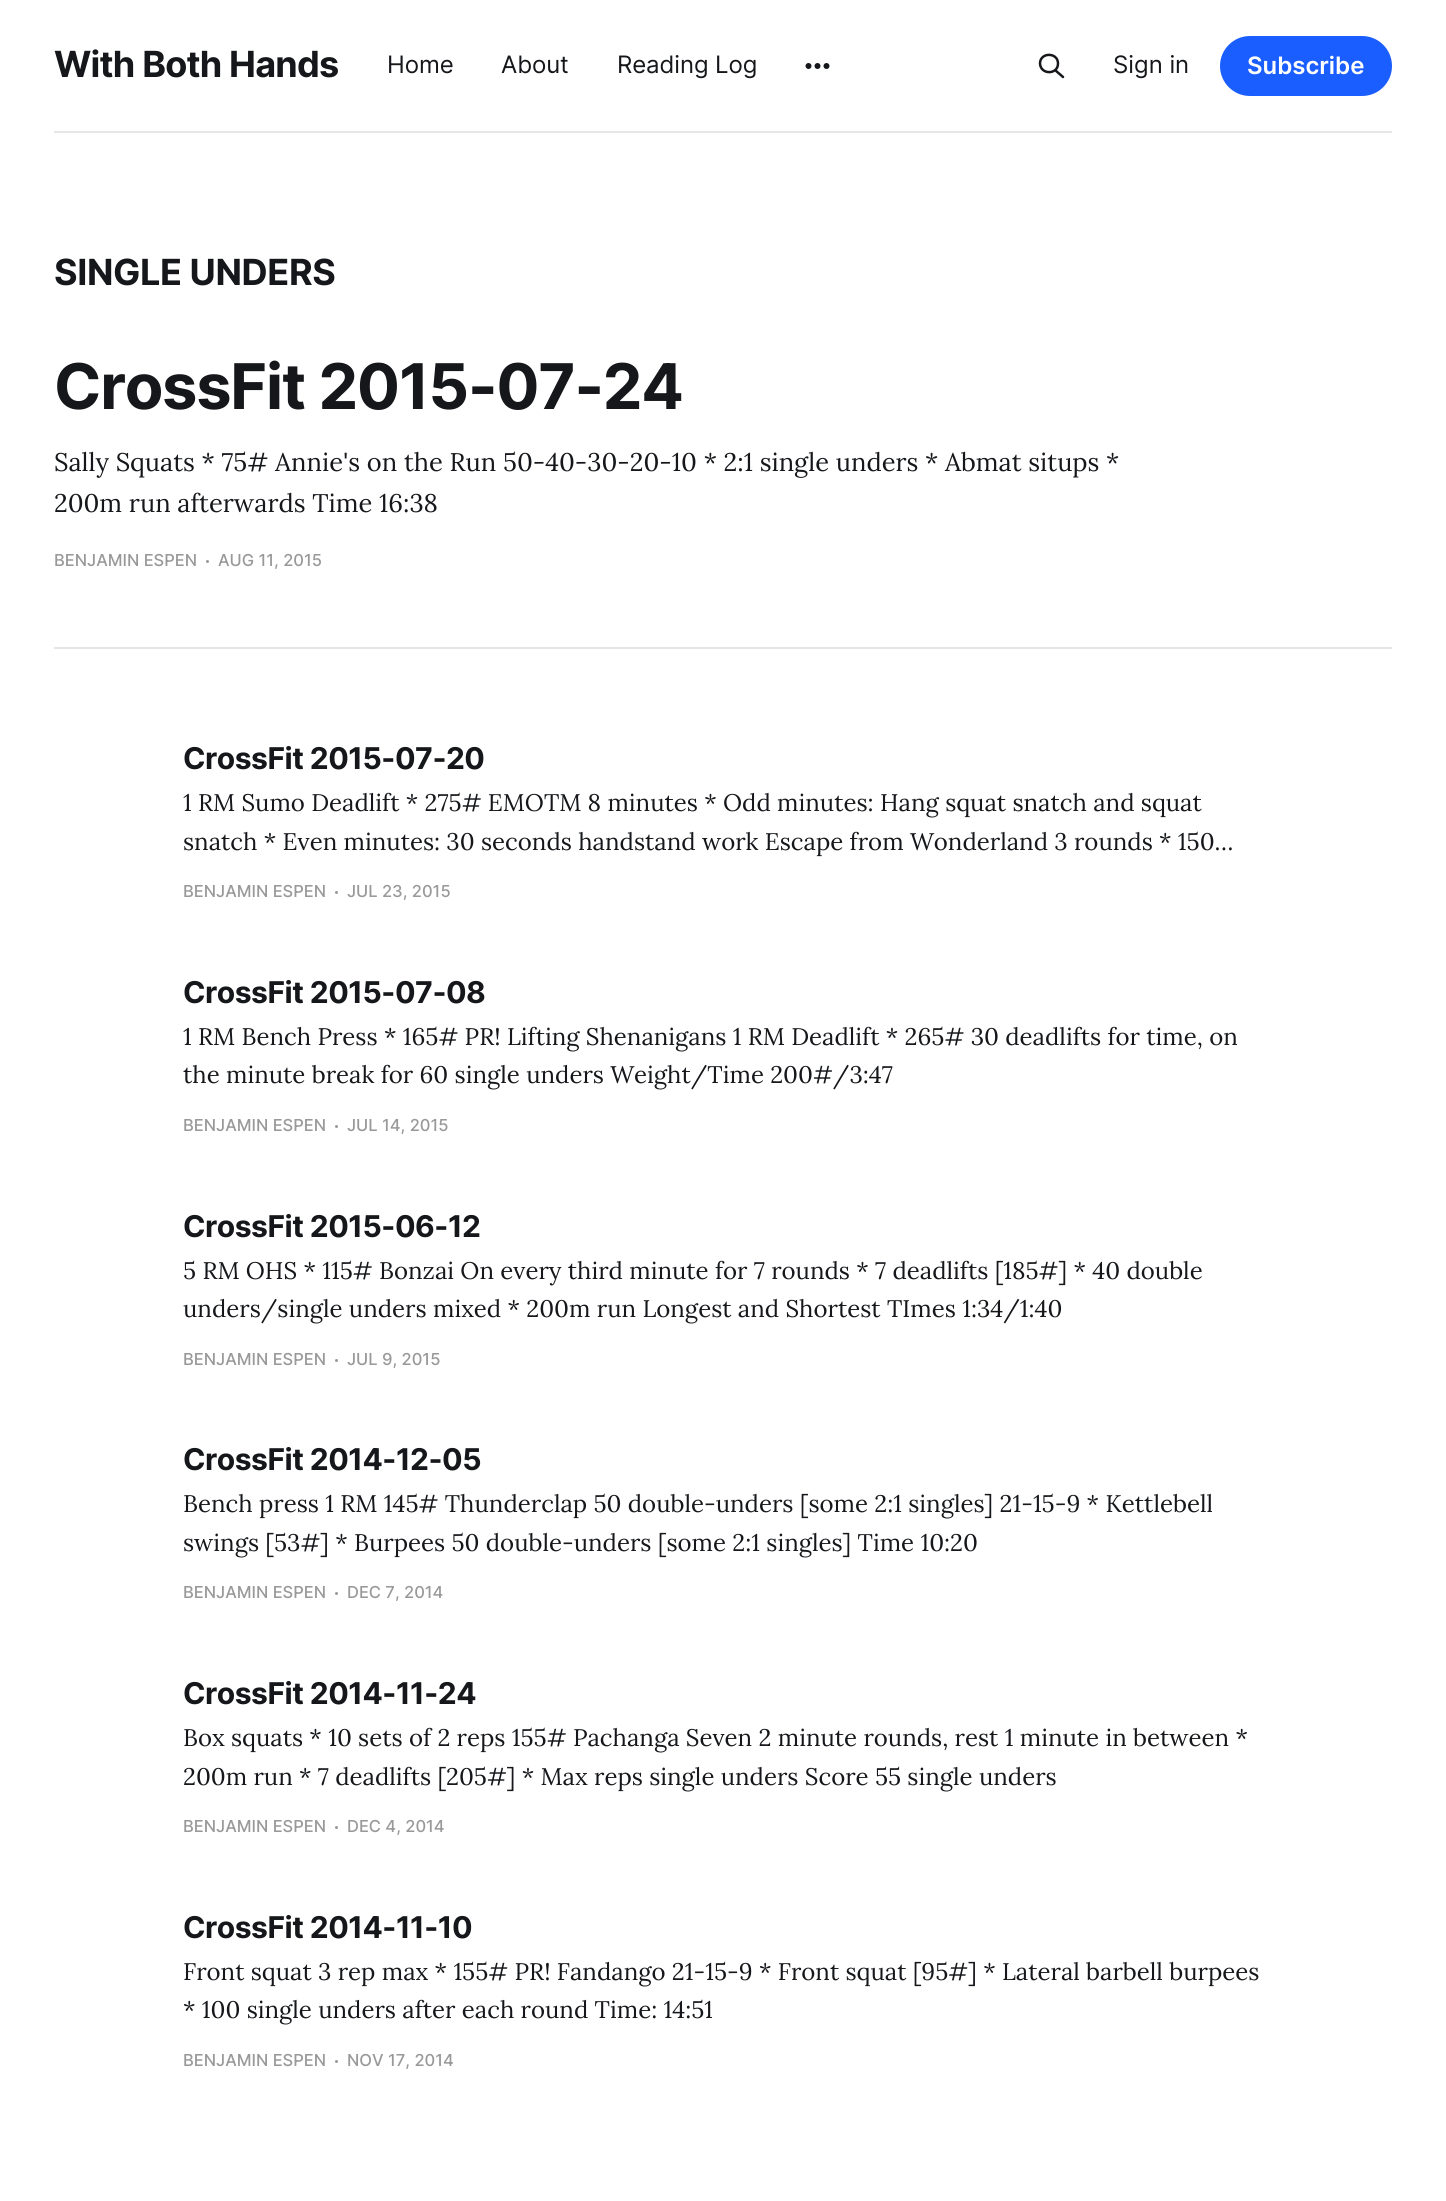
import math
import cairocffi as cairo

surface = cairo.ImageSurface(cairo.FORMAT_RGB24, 1446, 2201)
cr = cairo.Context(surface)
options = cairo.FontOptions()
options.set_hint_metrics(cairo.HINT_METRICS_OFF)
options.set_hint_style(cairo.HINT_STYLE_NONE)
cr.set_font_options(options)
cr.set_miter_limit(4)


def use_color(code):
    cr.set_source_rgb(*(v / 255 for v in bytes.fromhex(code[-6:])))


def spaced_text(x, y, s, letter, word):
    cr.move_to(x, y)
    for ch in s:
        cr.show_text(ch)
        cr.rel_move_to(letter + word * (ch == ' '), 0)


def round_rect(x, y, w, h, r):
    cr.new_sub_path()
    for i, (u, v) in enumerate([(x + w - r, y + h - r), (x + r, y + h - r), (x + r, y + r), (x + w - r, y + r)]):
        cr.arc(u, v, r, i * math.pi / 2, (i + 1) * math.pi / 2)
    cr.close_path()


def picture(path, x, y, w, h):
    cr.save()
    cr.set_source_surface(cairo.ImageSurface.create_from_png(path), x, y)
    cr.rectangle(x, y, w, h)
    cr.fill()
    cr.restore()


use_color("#ffffff")
cr.paint()
use_color("#e6e6e6")
cr.rectangle(54, 131, 1338, 2)
cr.fill()
cr.select_font_face("Inter", cairo.FONT_SLANT_NORMAL, cairo.FONT_WEIGHT_BOLD)
cr.set_font_size(36)
use_color("#15171a")
spaced_text(54, 77, "With Both Hands", -0.75, 0)
cr.select_font_face("Inter")
cr.set_font_size(24)
spaced_text(387, 73, "Home", -0.1, 0)
spaced_text(501, 73, "About", -0.1, 0)
spaced_text(617, 73, "Reading Log", -0.1, 0)
picture("img1.png", 805, 63, 25, 6)
cr.new_path()
cr.move_to(1063, 77)
cr.line_to(1055, 70)
cr.move_to(1058, 63.5)
cr.curve_to(1058, 75, 1040.5, 75, 1040, 63.5)
cr.curve_to(1040, 52, 1058, 52, 1058, 63.5)
cr.close_path()
cr.set_line_width(2.5)
cr.set_line_cap(cairo.LINE_CAP_ROUND)
cr.set_line_join(cairo.LINE_JOIN_ROUND)
cr.stroke()
cr.move_to(1113, 73)
cr.show_text("Sign in")
use_color("#1a5eff")
round_rect(1220, 36, 172, 60, 30)
cr.fill()
cr.select_font_face("Inter SemiBold")
use_color("#ffffff")
cr.move_to(1247, 74)
cr.show_text("Subscribe")
cr.select_font_face("Inter", cairo.FONT_SLANT_NORMAL, cairo.FONT_WEIGHT_BOLD)
cr.set_font_size(36)
use_color("#15171a")
spaced_text(54, 285, "SINGLE UNDERS", -0.4, 0)
use_color("#e6e6e6")
cr.rectangle(54, 647, 1338, 2)
cr.fill()
cr.set_font_size(63)
use_color("#15171a")
spaced_text(54, 409, "CrossFit 2015-07-24", -1.25, 0)
cr.select_font_face("Lora")
cr.set_font_size(25.5)
cr.move_to(54, 471)
cr.show_text("Sally Squats * 75# Annie's on the Run 50-40-30-20-10 * 2:1 single unders * Abmat situps *")
cr.move_to(54, 512)
cr.show_text("200m run afterwards Time 16:38")
cr.select_font_face("Inter Medium")
cr.set_font_size(16.5)
use_color("#999999")
cr.move_to(54, 566)
cr.show_text("BENJAMIN ESPEN")
cr.new_path()
cr.arc(207.5, 561.5, 1.5, 0, 2 * math.pi)
cr.fill()
cr.move_to(218, 566)
cr.show_text("AUG 11, 2015")
cr.select_font_face("Inter", cairo.FONT_SLANT_NORMAL, cairo.FONT_WEIGHT_BOLD)
cr.set_font_size(30)
use_color("#15171a")
spaced_text(183, 769, "CrossFit 2015-07-20", -0.5, 0)
cr.select_font_face("Lora")
cr.set_font_size(24)
cr.move_to(183, 811)
cr.show_text("1 RM Sumo Deadlift * 275# EMOTM 8 minutes * Odd minutes: Hang squat snatch and squat")
cr.move_to(183, 850)
cr.show_text("snatch * Even minutes: 30 seconds handstand work Escape from Wonderland 3 rounds * 150…")
cr.select_font_face("Inter Medium")
cr.set_font_size(16.5)
use_color("#999999")
cr.move_to(183, 897)
cr.show_text("BENJAMIN ESPEN")
cr.new_path()
cr.arc(336.5, 892.5, 1.5, 0, 2 * math.pi)
cr.fill()
cr.move_to(347, 897)
cr.show_text("JUL 23, 2015")
cr.select_font_face("Inter", cairo.FONT_SLANT_NORMAL, cairo.FONT_WEIGHT_BOLD)
cr.set_font_size(30)
use_color("#15171a")
spaced_text(183, 1003, "CrossFit 2015-07-08", -0.5, 0)
cr.select_font_face("Lora")
cr.set_font_size(24)
cr.move_to(183, 1045)
cr.show_text("1 RM Bench Press * 165# PR! Lifting Shenanigans 1 RM Deadlift * 265# 30 deadlifts for time, on")
cr.move_to(183, 1083)
cr.show_text("the minute break for 60 single unders Weight/Time 200#/3:47")
cr.select_font_face("Inter Medium")
cr.set_font_size(16.5)
use_color("#999999")
cr.move_to(183, 1131)
cr.show_text("BENJAMIN ESPEN")
cr.new_path()
cr.arc(336.5, 1126.5, 1.5, 0, 2 * math.pi)
cr.fill()
cr.move_to(347, 1131)
cr.show_text("JUL 14, 2015")
cr.select_font_face("Inter", cairo.FONT_SLANT_NORMAL, cairo.FONT_WEIGHT_BOLD)
cr.set_font_size(30)
use_color("#15171a")
spaced_text(183, 1237, "CrossFit 2015-06-12", -0.5, 0)
cr.select_font_face("Lora")
cr.set_font_size(24)
cr.move_to(183, 1279)
cr.show_text("5 RM OHS * 115# Bonzai On every third minute for 7 rounds * 7 deadlifts [185#] * 40 double")
cr.move_to(183, 1317)
cr.show_text("unders/single unders mixed * 200m run Longest and Shortest TImes 1:34/1:40")
cr.select_font_face("Inter Medium")
cr.set_font_size(16.5)
use_color("#999999")
cr.move_to(183, 1365)
cr.show_text("BENJAMIN ESPEN")
cr.new_path()
cr.arc(336.5, 1360.5, 1.5, 0, 2 * math.pi)
cr.fill()
cr.move_to(347, 1365)
cr.show_text("JUL 9, 2015")
cr.select_font_face("Inter", cairo.FONT_SLANT_NORMAL, cairo.FONT_WEIGHT_BOLD)
cr.set_font_size(30)
use_color("#15171a")
spaced_text(183, 1470, "CrossFit 2014-12-05", -0.5, 0)
cr.select_font_face("Lora")
cr.set_font_size(24)
cr.move_to(183, 1512)
cr.show_text("Bench press 1 RM 145# Thunderclap 50 double-unders [some 2:1 singles] 21-15-9 * Kettlebell")
cr.move_to(183, 1551)
cr.show_text("swings [53#] * Burpees 50 double-unders [some 2:1 singles] Time 10:20")
cr.select_font_face("Inter Medium")
cr.set_font_size(16.5)
use_color("#999999")
cr.move_to(183, 1598)
cr.show_text("BENJAMIN ESPEN")
cr.new_path()
cr.arc(336.5, 1593.5, 1.5, 0, 2 * math.pi)
cr.fill()
cr.move_to(347, 1598)
cr.show_text("DEC 7, 2014")
cr.select_font_face("Inter", cairo.FONT_SLANT_NORMAL, cairo.FONT_WEIGHT_BOLD)
cr.set_font_size(30)
use_color("#15171a")
spaced_text(183, 1704, "CrossFit 2014-11-24", -0.5, 0)
cr.select_font_face("Lora")
cr.set_font_size(24)
cr.move_to(183, 1746)
cr.show_text("Box squats * 10 sets of 2 reps 155# Pachanga Seven 2 minute rounds, rest 1 minute in between *")
cr.move_to(183, 1785)
cr.show_text("200m run * 7 deadlifts [205#] * Max reps single unders Score 55 single unders")
cr.select_font_face("Inter Medium")
cr.set_font_size(16.5)
use_color("#999999")
cr.move_to(183, 1832)
cr.show_text("BENJAMIN ESPEN")
cr.new_path()
cr.arc(336.5, 1827.5, 1.5, 0, 2 * math.pi)
cr.fill()
cr.move_to(347, 1832)
cr.show_text("DEC 4, 2014")
cr.select_font_face("Inter", cairo.FONT_SLANT_NORMAL, cairo.FONT_WEIGHT_BOLD)
cr.set_font_size(30)
use_color("#15171a")
spaced_text(183, 1938, "CrossFit 2014-11-10", -0.5, 0)
cr.select_font_face("Lora")
cr.set_font_size(24)
cr.move_to(183, 1980)
cr.show_text("Front squat 3 rep max * 155# PR! Fandango 21-15-9 * Front squat [95#] * Lateral barbell burpees")
cr.move_to(183, 2018)
cr.show_text("* 100 single unders after each round Time: 14:51")
cr.select_font_face("Inter Medium")
cr.set_font_size(16.5)
use_color("#999999")
cr.move_to(183, 2066)
cr.show_text("BENJAMIN ESPEN")
cr.new_path()
cr.arc(336.5, 2061.5, 1.5, 0, 2 * math.pi)
cr.fill()
cr.move_to(347, 2066)
cr.show_text("NOV 17, 2014")
surface.write_to_png("result.png")
